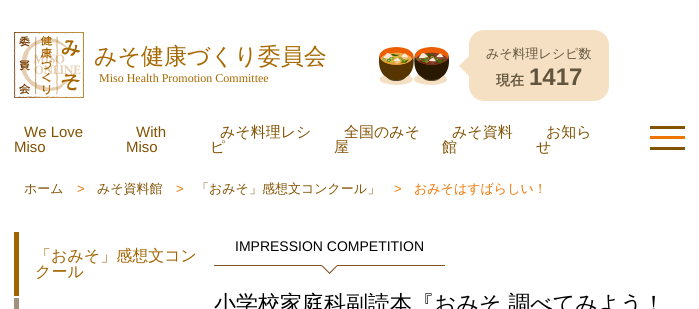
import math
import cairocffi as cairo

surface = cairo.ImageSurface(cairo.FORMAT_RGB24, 699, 309)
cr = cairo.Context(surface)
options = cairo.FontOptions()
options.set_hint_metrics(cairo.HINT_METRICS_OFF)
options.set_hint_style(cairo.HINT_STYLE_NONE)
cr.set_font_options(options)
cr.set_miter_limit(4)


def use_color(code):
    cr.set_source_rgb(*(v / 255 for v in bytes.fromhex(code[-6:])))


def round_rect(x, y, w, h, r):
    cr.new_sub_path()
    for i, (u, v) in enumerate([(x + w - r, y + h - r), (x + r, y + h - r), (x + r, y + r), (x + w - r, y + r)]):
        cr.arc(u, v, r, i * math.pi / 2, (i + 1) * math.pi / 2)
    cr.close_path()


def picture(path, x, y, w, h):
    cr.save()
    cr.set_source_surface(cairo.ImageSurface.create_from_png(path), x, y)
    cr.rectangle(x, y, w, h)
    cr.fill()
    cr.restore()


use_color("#ffffff")
cr.paint()
picture("img1.png", 14, 32, 70, 66)
cr.select_font_face("WenQuanYi Zen Hei Medium")
cr.set_font_size(23)
use_color("#a76801")
cr.move_to(94, 64)
cr.show_text("みそ健康づくり委員会")
cr.select_font_face("Liberation Serif")
cr.set_font_size(12)
cr.move_to(99, 82)
cr.show_text("Miso Health Promotion Committee")
picture("img2.png", 379, 47, 70, 38)
use_color("#f5e0c3")
round_rect(469, 30, 140, 71, 15)
cr.fill()
cr.new_path()
cr.move_to(469, 56)
cr.line_to(469, 76)
cr.line_to(459, 66)
cr.close_path()
cr.fill()
cr.select_font_face("WenQuanYi Zen Hei Medium")
cr.set_font_size(13)
use_color("#62553d")
cr.move_to(486, 58)
cr.show_text("みそ料理レシピ数")
cr.select_font_face("WenQuanYi Zen Hei", cairo.FONT_SLANT_NORMAL, cairo.FONT_WEIGHT_BOLD)
cr.set_font_size(14)
cr.move_to(496, 85)
cr.show_text("現在")
cr.select_font_face("Liberation Sans", cairo.FONT_SLANT_NORMAL, cairo.FONT_WEIGHT_BOLD)
cr.set_font_size(24)
cr.move_to(529, 85)
cr.show_text("1417")
cr.select_font_face("Liberation Sans")
cr.set_font_size(15)
use_color("#825303")
cr.move_to(24, 137)
cr.show_text("We Love")
cr.move_to(14, 152)
cr.show_text("Miso")
cr.move_to(136, 137)
cr.show_text("With")
cr.move_to(126, 152)
cr.show_text("Miso")
cr.select_font_face("WenQuanYi Zen Hei Medium")
cr.move_to(220, 137)
cr.show_text("みそ料理レシ")
cr.move_to(210, 152)
cr.show_text("ピ")
cr.move_to(344, 137)
cr.show_text("全国のみそ")
cr.move_to(334, 152)
cr.show_text("屋")
cr.move_to(452, 137)
cr.show_text("みそ資料")
cr.move_to(442, 152)
cr.show_text("館")
cr.move_to(546, 137)
cr.show_text("お知ら")
cr.move_to(536, 152)
cr.show_text("せ")
cr.rectangle(650, 126, 35, 3)
cr.fill()
use_color("#ee7400")
cr.rectangle(650, 136, 35, 3)
cr.fill()
use_color("#825303")
cr.rectangle(650, 147, 35, 3)
cr.fill()
cr.set_font_size(13)
cr.move_to(24, 193)
cr.show_text("ホーム")
cr.select_font_face("Liberation Sans")
use_color("#ee7400")
cr.move_to(77, 193)
cr.show_text(">")
cr.select_font_face("WenQuanYi Zen Hei Medium")
use_color("#825303")
cr.move_to(97, 193)
cr.show_text("みそ資料館")
cr.select_font_face("Liberation Sans")
use_color("#ee7400")
cr.move_to(176, 193)
cr.show_text(">")
cr.select_font_face("WenQuanYi Zen Hei Medium")
use_color("#825303")
cr.move_to(196, 193)
cr.show_text("「おみそ」感想文コンクール」")
cr.select_font_face("Liberation Sans")
use_color("#ee7400")
cr.move_to(394, 193)
cr.show_text(">")
cr.select_font_face("WenQuanYi Zen Hei Medium")
cr.move_to(414, 193)
cr.show_text("おみそはすばらしい！")
use_color("#9f6300")
cr.rectangle(14, 232, 5, 64)
cr.fill()
cr.set_font_size(16)
cr.move_to(35, 261)
cr.show_text("「おみそ」感想文コン")
cr.move_to(35, 277)
cr.show_text("クール")
use_color("#a1937b")
cr.rectangle(14, 298, 5, 11)
cr.fill()
use_color("#815226")
cr.rectangle(214, 265, 231, 1)
cr.fill()
cr.select_font_face("Liberation Sans")
cr.set_font_size(14)
use_color("#000000")
cr.move_to(235, 251)
cr.show_text("IMPRESSION COMPETITION")
use_color("#ffffff")
cr.new_path()
cr.move_to(329.5, 258)
cr.line_to(337.5, 266)
cr.line_to(329.5, 274)
cr.line_to(321.5, 266)
cr.close_path()
cr.fill()
use_color("#815226")
cr.new_path()
cr.move_to(336.5, 265.5)
cr.line_to(337.5, 266)
cr.line_to(329.5, 274)
cr.line_to(329, 273)
cr.close_path()
cr.fill()
cr.new_path()
cr.move_to(322.5, 265.5)
cr.line_to(330, 273)
cr.line_to(329.5, 274)
cr.line_to(321.5, 266)
cr.close_path()
cr.fill()
cr.select_font_face("WenQuanYi Zen Hei Medium")
cr.set_font_size(22)
use_color("#000000")
cr.move_to(214, 311)
cr.show_text("小学校家庭科副読本『おみそ 調べてみよう！")
surface.write_to_png("result.png")
